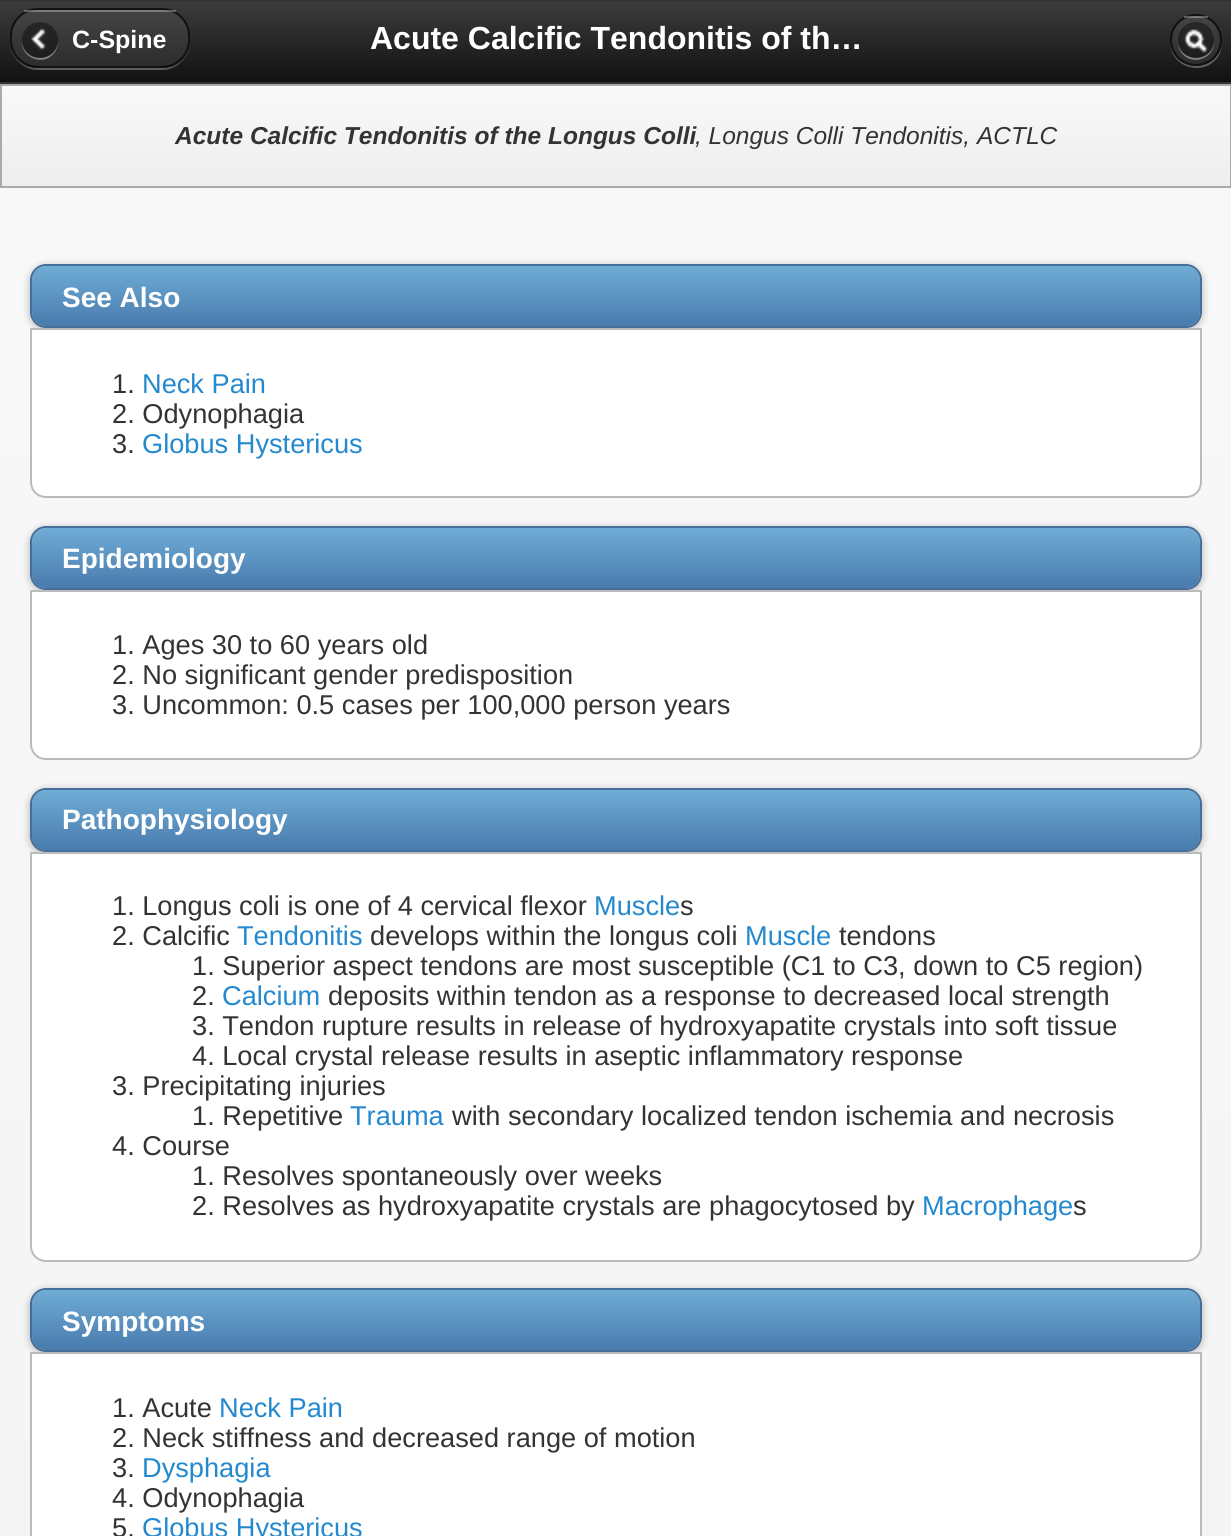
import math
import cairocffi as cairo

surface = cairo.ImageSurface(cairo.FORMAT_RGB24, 1231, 1536)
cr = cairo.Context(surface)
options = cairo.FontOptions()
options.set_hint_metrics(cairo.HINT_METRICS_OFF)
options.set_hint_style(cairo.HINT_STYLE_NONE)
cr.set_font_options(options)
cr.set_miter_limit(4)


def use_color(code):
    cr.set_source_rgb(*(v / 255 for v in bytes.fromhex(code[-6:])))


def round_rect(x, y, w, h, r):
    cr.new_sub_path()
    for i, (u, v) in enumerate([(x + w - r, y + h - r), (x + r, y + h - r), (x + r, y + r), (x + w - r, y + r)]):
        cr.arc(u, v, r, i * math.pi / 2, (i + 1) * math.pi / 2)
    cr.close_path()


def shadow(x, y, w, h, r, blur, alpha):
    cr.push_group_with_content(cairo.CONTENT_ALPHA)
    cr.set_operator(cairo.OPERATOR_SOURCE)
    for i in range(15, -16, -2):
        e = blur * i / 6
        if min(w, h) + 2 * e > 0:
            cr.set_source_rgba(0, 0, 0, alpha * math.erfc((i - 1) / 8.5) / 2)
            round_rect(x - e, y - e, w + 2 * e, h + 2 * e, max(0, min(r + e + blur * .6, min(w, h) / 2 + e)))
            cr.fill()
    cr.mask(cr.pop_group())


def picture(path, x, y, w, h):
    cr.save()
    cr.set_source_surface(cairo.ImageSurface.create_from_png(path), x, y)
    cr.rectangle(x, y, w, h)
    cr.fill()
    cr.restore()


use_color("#ffffff")
cr.paint()
gradient = cairo.LinearGradient(616, 0, 616, 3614)
gradient.add_color_stop_rgba(0, 0.976, 0.976, 0.976, 1)
gradient.add_color_stop_rgba(1, 0.933, 0.933, 0.933, 1)
cr.set_source(gradient)
cr.rectangle(0, 188, 1231, 1348)
cr.fill()
gradient = cairo.LinearGradient(616, 2, 616, 82)
gradient.add_color_stop_rgba(0, 0.235, 0.235, 0.235, 1)
gradient.add_color_stop_rgba(1, 0.067, 0.067, 0.067, 1)
cr.set_source(gradient)
cr.rectangle(0, 2, 1231, 80)
cr.fill()
use_color("#333333")
cr.rectangle(0, 0, 1231, 2)
cr.fill()
cr.rectangle(0, 82, 1231, 2)
cr.fill()
cr.set_source_rgba(1, 1, 1, 0.3)
cr.new_path()
cr.move_to(10, 41)
cr.line_to(10, 42)
cr.curve_to(10, 57, 23, 70, 38, 70)
cr.line_to(162, 70)
cr.curve_to(177, 70, 190, 57, 190, 42)
cr.line_to(190, 41)
cr.curve_to(190, 56, 178, 68, 163, 68)
cr.line_to(37, 68)
cr.curve_to(22, 68, 10, 56, 10, 41)
cr.close_path()
cr.fill()
gradient = cairo.LinearGradient(100, 10, 100, 66)
gradient.add_color_stop_rgba(0, 0.267, 0.267, 0.267, 1)
gradient.add_color_stop_rgba(1, 0.176, 0.176, 0.176, 1)
cr.set_source(gradient)
round_rect(12, 10, 176, 56, 26)
cr.fill()
round_rect(11, 9, 178, 58, 27)
use_color("#111111")
cr.stroke()
cr.set_source_rgba(1, 1, 1, 0.3)
cr.rectangle(24, 10, 152, 2)
cr.fill()
cr.set_source_rgba(1, 1, 1, 0.4)
cr.new_path()
cr.move_to(22, 41)
cr.curve_to(21, 59, 45, 67, 55, 52)
cr.curve_to(57, 49, 58, 45, 58, 41)
cr.curve_to(56.5, 63.5, 23.5, 63.5, 22, 41)
cr.close_path()
cr.fill()
cr.set_source_rgba(0, 0, 0, 0.4)
cr.arc(40, 40, 18, 0, 2 * math.pi)
cr.fill()
picture("img1.png", 31, 28, 16, 23)
cr.select_font_face("Liberation Sans", cairo.FONT_SLANT_NORMAL, cairo.FONT_WEIGHT_BOLD)
cr.set_font_size(25)
use_color("#ffffff")
cr.move_to(72, 48)
cr.show_text("C-Spine")
cr.set_font_size(32)
cr.move_to(370, 49)
cr.show_text("Acute Calcific Tendonitis of th…")
cr.set_source_rgba(1, 1, 1, 0.3)
cr.new_path()
cr.move_to(1170, 41)
cr.curve_to(1169, 67, 1203, 78, 1218, 57)
cr.curve_to(1221, 52, 1222, 46, 1222, 41)
cr.curve_to(1221, 74, 1171, 74, 1170, 41)
cr.close_path()
cr.fill()
gradient = cairo.LinearGradient(1196, 16, 1196, 64)
gradient.add_color_stop_rgba(0, 0.267, 0.267, 0.267, 1)
gradient.add_color_stop_rgba(1, 0.176, 0.176, 0.176, 1)
cr.set_source(gradient)
cr.arc(1196, 40, 24, 0, 2 * math.pi)
cr.fill()
cr.arc(1196, 40, 25, 0, 2 * math.pi)
use_color("#111111")
cr.stroke()
cr.set_source_rgba(1, 1, 1, 0.3)
cr.rectangle(1184, 16, 24, 2)
cr.fill()
cr.set_source_rgba(1, 1, 1, 0.4)
cr.new_path()
cr.move_to(1214, 41)
cr.curve_to(1212.5, 63.5, 1179.5, 63.5, 1178, 41)
cr.curve_to(1178, 45, 1179, 49, 1181, 52)
cr.curve_to(1191, 67, 1215, 59, 1214, 41)
cr.close_path()
cr.fill()
cr.set_source_rgba(0, 0, 0, 0.4)
cr.arc(1196, 40, 18, 0, 2 * math.pi)
cr.fill()
picture("img2.png", 1183, 29, 26, 24)
gradient = cairo.LinearGradient(616, 86, 616, 186)
gradient.add_color_stop_rgba(0, 0.976, 0.976, 0.976, 1)
gradient.add_color_stop_rgba(1, 0.933, 0.933, 0.933, 1)
cr.set_source(gradient)
cr.rectangle(2, 86, 1228, 100)
cr.fill()
cr.rectangle(1, 85, 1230, 102)
use_color("#aaaaaa")
cr.stroke()
cr.select_font_face("Liberation Sans", cairo.FONT_SLANT_ITALIC, cairo.FONT_WEIGHT_BOLD)
cr.set_font_size(24.5)
use_color("#333333")
cr.move_to(175, 144)
cr.show_text("Acute Calcific Tendonitis of the Longus Colli")
cr.select_font_face("Liberation Sans", cairo.FONT_SLANT_ITALIC)
cr.move_to(695, 144)
cr.show_text(", Longus Colli Tendonitis, ACTLC")
use_color("#000000")
shadow(30, 266, 1172, 64, 16, 4, 0.3)
gradient = cairo.LinearGradient(616, 266, 616, 326)
gradient.add_color_stop_rgba(0, 0.435, 0.675, 0.835, 1)
gradient.add_color_stop_rgba(1, 0.286, 0.482, 0.682, 1)
cr.set_source(gradient)
round_rect(32, 266, 1168, 60, 14)
cr.fill()
round_rect(31, 265, 1170, 62, 15)
use_color("#456f9a")
cr.stroke()
cr.select_font_face("Liberation Sans", cairo.FONT_SLANT_NORMAL, cairo.FONT_WEIGHT_BOLD)
cr.set_font_size(28)
use_color("#ffffff")
cr.move_to(62, 307)
cr.show_text("See Also")
cr.new_path()
cr.move_to(31, 329)
cr.line_to(1201, 329)
cr.line_to(1201, 482)
cr.curve_to(1201, 490.5, 1194.5, 497, 1186, 497)
cr.line_to(46, 497)
cr.curve_to(37.5, 497, 31, 490.5, 31, 482)
cr.close_path()
cr.fill_preserve()
use_color("#bbbbbb")
cr.stroke()
cr.select_font_face("Liberation Sans")
cr.set_font_size(27.2)
use_color("#333333")
cr.move_to(112, 393)
cr.show_text("1.")
use_color("#2489ce")
cr.move_to(142, 393)
cr.show_text("Neck Pain")
use_color("#333333")
cr.move_to(112, 423)
cr.show_text("2. Odynophagia")
cr.move_to(112, 453)
cr.show_text("3.")
use_color("#2489ce")
cr.move_to(142, 453)
cr.show_text("Globus Hystericus")
use_color("#000000")
shadow(30, 528, 1172, 64, 16, 4, 0.3)
gradient = cairo.LinearGradient(616, 528, 616, 588)
gradient.add_color_stop_rgba(0, 0.435, 0.675, 0.835, 1)
gradient.add_color_stop_rgba(1, 0.286, 0.482, 0.682, 1)
cr.set_source(gradient)
round_rect(32, 528, 1168, 60, 14)
cr.fill()
round_rect(31, 527, 1170, 62, 15)
use_color("#456f9a")
cr.stroke()
cr.select_font_face("Liberation Sans", cairo.FONT_SLANT_NORMAL, cairo.FONT_WEIGHT_BOLD)
cr.set_font_size(28)
use_color("#ffffff")
cr.move_to(62, 568)
cr.show_text("Epidemiology")
cr.new_path()
cr.move_to(31, 591)
cr.line_to(1201, 591)
cr.line_to(1201, 744)
cr.curve_to(1201, 752.5, 1194.5, 759, 1186, 759)
cr.line_to(46, 759)
cr.curve_to(37.5, 759, 31, 752.5, 31, 744)
cr.close_path()
cr.fill_preserve()
use_color("#bbbbbb")
cr.stroke()
cr.select_font_face("Liberation Sans")
cr.set_font_size(27.2)
use_color("#333333")
cr.move_to(112, 654)
cr.show_text("1. Ages 30 to 60 years old")
cr.move_to(112, 684)
cr.show_text("2. No significant gender predisposition")
cr.move_to(112, 714)
cr.show_text("3. Uncommon: 0.5 cases per 100,000 person years")
use_color("#000000")
shadow(30, 790, 1172, 64, 16, 4, 0.3)
gradient = cairo.LinearGradient(616, 790, 616, 850)
gradient.add_color_stop_rgba(0, 0.435, 0.675, 0.835, 1)
gradient.add_color_stop_rgba(1, 0.286, 0.482, 0.682, 1)
cr.set_source(gradient)
round_rect(32, 790, 1168, 60, 14)
cr.fill()
round_rect(31, 789, 1170, 62, 15)
use_color("#456f9a")
cr.stroke()
cr.select_font_face("Liberation Sans", cairo.FONT_SLANT_NORMAL, cairo.FONT_WEIGHT_BOLD)
cr.set_font_size(28)
use_color("#ffffff")
cr.move_to(62, 829)
cr.show_text("Pathophysiology")
cr.new_path()
cr.move_to(31, 853)
cr.line_to(1201, 853)
cr.line_to(1201, 1246)
cr.curve_to(1201, 1254.5, 1194.5, 1261, 1186, 1261)
cr.line_to(46, 1261)
cr.curve_to(37.5, 1261, 31, 1254.5, 31, 1246)
cr.close_path()
cr.fill_preserve()
use_color("#bbbbbb")
cr.stroke()
cr.select_font_face("Liberation Sans")
cr.set_font_size(27.2)
use_color("#333333")
cr.move_to(112, 915)
cr.show_text("1. Longus coli is one of 4 cervical flexor")
use_color("#2489ce")
cr.move_to(594, 915)
cr.show_text("Muscle")
use_color("#333333")
cr.move_to(680, 915)
cr.show_text("s")
cr.move_to(112, 945)
cr.show_text("2. Calcific")
use_color("#2489ce")
cr.move_to(237, 945)
cr.show_text("Tendonitis")
use_color("#333333")
cr.move_to(370, 945)
cr.show_text("develops within the longus coli")
use_color("#2489ce")
cr.move_to(745, 945)
cr.show_text("Muscle")
use_color("#333333")
cr.move_to(839, 945)
cr.show_text("tendons")
cr.move_to(192, 975)
cr.show_text("1. Superior aspect tendons are most susceptible (C1 to C3, down to C5 region)")
cr.move_to(192, 1005)
cr.show_text("2.")
use_color("#2489ce")
cr.move_to(222, 1005)
cr.show_text("Calcium")
use_color("#333333")
cr.move_to(328, 1005)
cr.show_text("deposits within tendon as a response to decreased local strength")
cr.move_to(192, 1035)
cr.show_text("3. Tendon rupture results in release of hydroxyapatite crystals into soft tissue")
cr.move_to(192, 1065)
cr.show_text("4. Local crystal release results in aseptic inflammatory response")
cr.move_to(112, 1095)
cr.show_text("3. Precipitating injuries")
cr.move_to(192, 1125)
cr.show_text("1. Repetitive")
use_color("#2489ce")
cr.move_to(350, 1125)
cr.show_text("Trauma")
use_color("#333333")
cr.move_to(452, 1125)
cr.show_text("with secondary localized tendon ischemia and necrosis")
cr.move_to(112, 1155)
cr.show_text("4. Course")
cr.move_to(192, 1185)
cr.show_text("1. Resolves spontaneously over weeks")
cr.move_to(192, 1215)
cr.show_text("2. Resolves as hydroxyapatite crystals are phagocytosed by")
use_color("#2489ce")
cr.move_to(922, 1215)
cr.show_text("Macrophage")
use_color("#333333")
cr.move_to(1073, 1215)
cr.show_text("s")
use_color("#000000")
shadow(30, 1290, 1172, 64, 16, 4, 0.3)
gradient = cairo.LinearGradient(616, 1290, 616, 1350)
gradient.add_color_stop_rgba(0, 0.435, 0.675, 0.835, 1)
gradient.add_color_stop_rgba(1, 0.286, 0.482, 0.682, 1)
cr.set_source(gradient)
round_rect(32, 1290, 1168, 60, 14)
cr.fill()
round_rect(31, 1289, 1170, 62, 15)
use_color("#456f9a")
cr.stroke()
cr.select_font_face("Liberation Sans", cairo.FONT_SLANT_NORMAL, cairo.FONT_WEIGHT_BOLD)
cr.set_font_size(28)
use_color("#ffffff")
cr.move_to(62, 1331)
cr.show_text("Symptoms")
cr.rectangle(31, 1353, 1170, 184)
cr.fill_preserve()
use_color("#bbbbbb")
cr.stroke()
cr.select_font_face("Liberation Sans")
cr.set_font_size(27.2)
use_color("#333333")
cr.move_to(112, 1417)
cr.show_text("1. Acute")
use_color("#2489ce")
cr.move_to(219, 1417)
cr.show_text("Neck Pain")
use_color("#333333")
cr.move_to(112, 1447)
cr.show_text("2. Neck stiffness and decreased range of motion")
cr.move_to(112, 1477)
cr.show_text("3.")
use_color("#2489ce")
cr.move_to(142, 1477)
cr.show_text("Dysphagia")
use_color("#333333")
cr.move_to(112, 1507)
cr.show_text("4. Odynophagia")
cr.move_to(112, 1537)
cr.show_text("5.")
use_color("#2489ce")
cr.move_to(142, 1537)
cr.show_text("Globus Hystericus")
surface.write_to_png("result.png")
